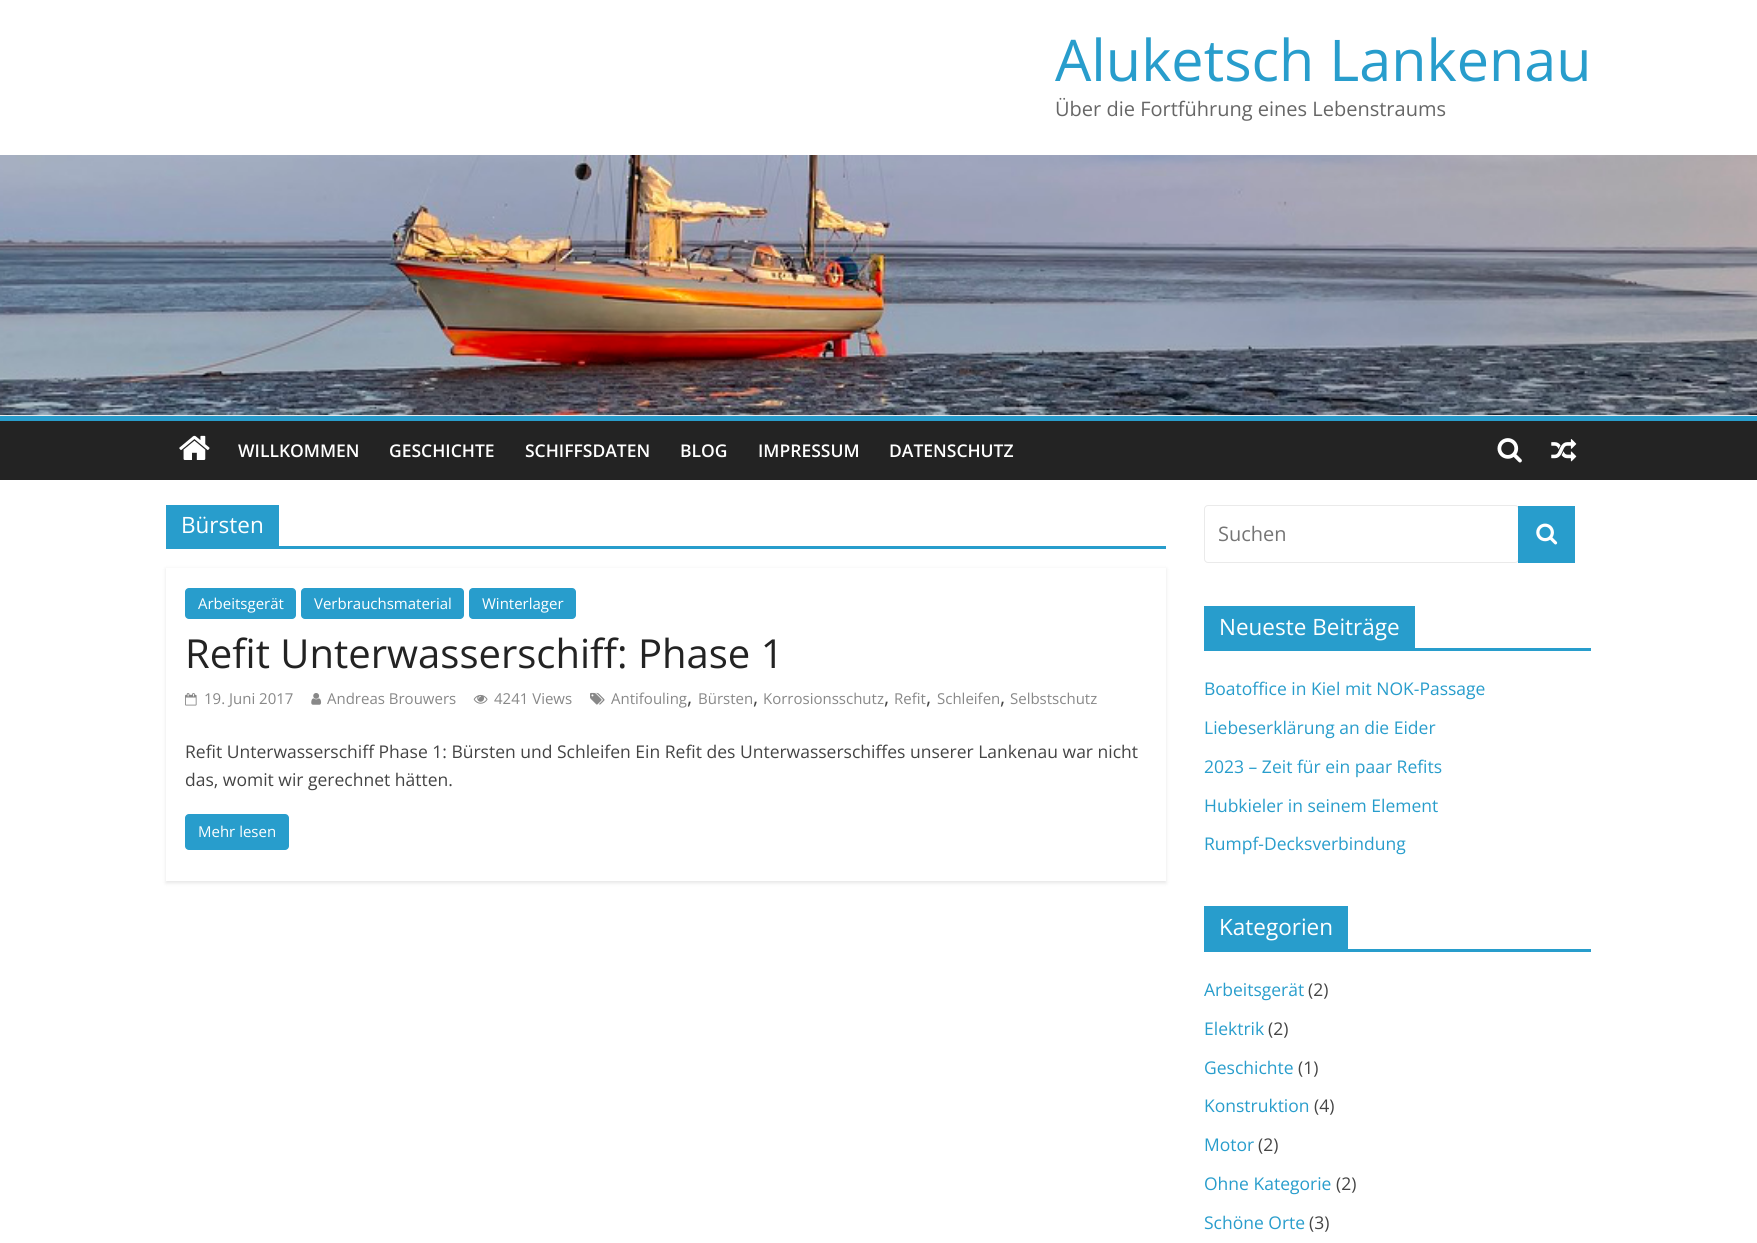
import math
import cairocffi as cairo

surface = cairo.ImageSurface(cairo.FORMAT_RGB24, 1757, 1243)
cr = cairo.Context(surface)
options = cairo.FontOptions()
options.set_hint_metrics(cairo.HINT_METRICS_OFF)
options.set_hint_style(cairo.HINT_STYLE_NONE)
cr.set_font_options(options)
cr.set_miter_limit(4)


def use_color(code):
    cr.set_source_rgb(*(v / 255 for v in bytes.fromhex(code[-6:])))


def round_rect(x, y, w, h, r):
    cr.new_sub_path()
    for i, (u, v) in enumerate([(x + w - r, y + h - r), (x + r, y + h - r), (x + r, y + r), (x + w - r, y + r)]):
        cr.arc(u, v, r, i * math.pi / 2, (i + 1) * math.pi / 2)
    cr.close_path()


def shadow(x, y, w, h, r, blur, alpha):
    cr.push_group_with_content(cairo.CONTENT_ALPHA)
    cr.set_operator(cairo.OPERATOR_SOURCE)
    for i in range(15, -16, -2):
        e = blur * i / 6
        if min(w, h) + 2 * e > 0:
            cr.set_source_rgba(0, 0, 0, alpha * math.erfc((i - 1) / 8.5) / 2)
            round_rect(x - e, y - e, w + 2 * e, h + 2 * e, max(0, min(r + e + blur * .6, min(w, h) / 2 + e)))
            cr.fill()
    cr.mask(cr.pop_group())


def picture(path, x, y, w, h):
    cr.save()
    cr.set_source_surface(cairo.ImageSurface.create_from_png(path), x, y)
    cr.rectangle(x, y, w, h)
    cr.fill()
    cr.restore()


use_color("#ffffff")
cr.paint()
cr.select_font_face("Open Sans")
cr.set_font_size(57.5)
use_color("#289dcc")
cr.move_to(1055, 81)
cr.show_text("Aluketsch Lankenau")
cr.set_font_size(20)
use_color("#666666")
cr.move_to(1055, 116)
cr.show_text("Über die Fortführung eines Lebenstraums")
picture("img1.png", 0, 155, 1757, 260)
use_color("#eaeaea")
cr.rectangle(0, 415, 1757, 1)
cr.fill()
use_color("#232323")
cr.rectangle(0, 421, 1757, 59)
cr.fill()
use_color("#289dcc")
cr.rectangle(0, 416, 1757, 5)
cr.fill()
picture("img2.png", 179, 435, 31, 25)
cr.select_font_face("Open Sans SemiBold")
cr.set_font_size(17.5)
use_color("#ffffff")
cr.move_to(238, 457)
cr.show_text("WILLKOMMEN")
cr.move_to(389, 457)
cr.show_text("GESCHICHTE")
cr.move_to(525, 457)
cr.show_text("SCHIFFSDATEN")
cr.move_to(680, 457)
cr.show_text("BLOG")
cr.move_to(758, 457)
cr.show_text("IMPRESSUM")
cr.move_to(889, 457)
cr.show_text("DATENSCHUTZ")
picture("img3.png", 1497, 438, 25, 25)
picture("img4.png", 1551, 439, 26, 23)
use_color("#289dcc")
cr.rectangle(166, 546, 1000, 3)
cr.fill()
cr.rectangle(166, 505, 113, 41)
cr.fill()
cr.select_font_face("Open Sans")
cr.set_font_size(22.5)
use_color("#ffffff")
cr.move_to(181, 533)
cr.show_text("Bürsten")
cr.save()
cr.set_fill_rule(cairo.FILL_RULE_EVEN_ODD)
cr.new_path()
cr.move_to(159, 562)
cr.line_to(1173, 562)
cr.line_to(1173, 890)
cr.line_to(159, 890)
cr.close_path()
cr.move_to(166, 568)
cr.line_to(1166, 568)
cr.line_to(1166, 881)
cr.line_to(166, 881)
cr.close_path()
cr.clip()
use_color("#000000")
shadow(166, 569, 1000, 314, 0, 2, 0.1)
cr.restore()
use_color("#289dcc")
round_rect(185, 588, 111, 31, 4)
cr.fill()
cr.set_font_size(15)
use_color("#ffffff")
cr.move_to(198, 609)
cr.show_text("Arbeitsgerät")
use_color("#289dcc")
round_rect(301, 588, 163, 31, 4)
cr.fill()
use_color("#ffffff")
cr.move_to(314, 609)
cr.show_text("Verbrauchsmaterial")
use_color("#289dcc")
round_rect(469, 588, 107, 31, 4)
cr.fill()
use_color("#ffffff")
cr.move_to(482, 609)
cr.show_text("Winterlager")
cr.set_font_size(40)
use_color("#232323")
cr.move_to(185, 668)
cr.show_text("Refit Unterwasserschiff: Phase 1")
picture("img5.png", 185, 693, 12, 13)
cr.set_font_size(15)
use_color("#888888")
cr.move_to(204, 704)
cr.show_text("19. Juni 2017")
picture("img6.png", 311, 693, 11, 12)
cr.move_to(327, 704)
cr.show_text("Andreas Brouwers")
picture("img7.png", 473, 694, 15, 10)
cr.move_to(494, 704)
cr.show_text("4241 Views")
picture("img8.png", 590, 692, 15, 13)
cr.move_to(611, 704)
cr.show_text("Antifouling")
cr.set_font_size(20)
use_color("#444444")
cr.move_to(687, 704)
cr.show_text(",")
cr.set_font_size(15)
use_color("#888888")
cr.move_to(698, 704)
cr.show_text("Bürsten")
cr.set_font_size(20)
use_color("#444444")
cr.move_to(753, 704)
cr.show_text(",")
cr.set_font_size(15)
use_color("#888888")
cr.move_to(763, 704)
cr.show_text("Korrosionsschutz")
cr.set_font_size(20)
use_color("#444444")
cr.move_to(884, 704)
cr.show_text(",")
cr.set_font_size(15)
use_color("#888888")
cr.move_to(894, 704)
cr.show_text("Refit")
cr.set_font_size(20)
use_color("#444444")
cr.move_to(926, 704)
cr.show_text(",")
cr.set_font_size(15)
use_color("#888888")
cr.move_to(937, 704)
cr.show_text("Schleifen")
cr.set_font_size(20)
use_color("#444444")
cr.move_to(1000, 704)
cr.show_text(",")
cr.set_font_size(15)
use_color("#888888")
cr.move_to(1010, 704)
cr.show_text("Selbstschutz")
cr.set_font_size(17.5)
use_color("#444444")
cr.move_to(185, 758)
cr.show_text("Refit Unterwasserschiff Phase 1: Bürsten und Schleifen Ein Refit des Unterwasserschiffes unserer Lankenau war nicht")
cr.move_to(185, 786)
cr.show_text("das, womit wir gerechnet hätten.")
use_color("#289dcc")
round_rect(185, 814, 104, 36, 4)
cr.fill()
cr.set_font_size(15)
use_color("#ffffff")
cr.move_to(198, 837)
cr.show_text("Mehr lesen")
round_rect(1204.5, 505.5, 314, 57, 3.5)
use_color("#eaeaea")
cr.set_line_width(1)
cr.stroke()
cr.set_font_size(20)
use_color("#757575")
cr.move_to(1218, 541)
cr.show_text("Suchen")
use_color("#289dcc")
cr.rectangle(1518, 506, 57, 57)
cr.fill()
picture("img9.png", 1536, 523, 22, 22)
cr.rectangle(1204, 648, 387, 3)
cr.fill()
cr.rectangle(1204, 606, 211, 42)
cr.fill()
cr.set_font_size(22.5)
use_color("#ffffff")
cr.move_to(1219, 635)
cr.show_text("Neueste Beiträge")
cr.set_font_size(17.5)
use_color("#289dcc")
cr.move_to(1204, 695)
cr.show_text("Boatoffice in Kiel mit NOK-Passage")
cr.move_to(1204, 734)
cr.show_text("Liebeserklärung an die Eider")
cr.move_to(1204, 773)
cr.show_text("2023 – Zeit für ein paar Refits")
cr.move_to(1204, 812)
cr.show_text("Hubkieler in seinem Element")
cr.move_to(1204, 850)
cr.show_text("Rumpf-Decksverbindung")
cr.rectangle(1204, 949, 387, 3)
cr.fill()
cr.rectangle(1204, 906, 144, 43)
cr.fill()
cr.set_font_size(22.5)
use_color("#ffffff")
cr.move_to(1219, 935)
cr.show_text("Kategorien")
cr.set_font_size(17.5)
use_color("#289dcc")
cr.move_to(1204, 996)
cr.show_text("Arbeitsgerät")
use_color("#444444")
cr.move_to(1308, 996)
cr.show_text("(2)")
use_color("#289dcc")
cr.move_to(1204, 1035)
cr.show_text("Elektrik")
use_color("#444444")
cr.move_to(1268, 1035)
cr.show_text("(2)")
use_color("#289dcc")
cr.move_to(1204, 1074)
cr.show_text("Geschichte")
use_color("#444444")
cr.move_to(1298, 1074)
cr.show_text("(1)")
use_color("#289dcc")
cr.move_to(1204, 1112)
cr.show_text("Konstruktion")
use_color("#444444")
cr.move_to(1314, 1112)
cr.show_text("(4)")
use_color("#289dcc")
cr.move_to(1204, 1151)
cr.show_text("Motor")
use_color("#444444")
cr.move_to(1258, 1151)
cr.show_text("(2)")
use_color("#289dcc")
cr.move_to(1204, 1190)
cr.show_text("Ohne Kategorie")
use_color("#444444")
cr.move_to(1336, 1190)
cr.show_text("(2)")
use_color("#289dcc")
cr.move_to(1204, 1229)
cr.show_text("Schöne Orte")
use_color("#444444")
cr.move_to(1309, 1229)
cr.show_text("(3)")
surface.write_to_png("result.png")
